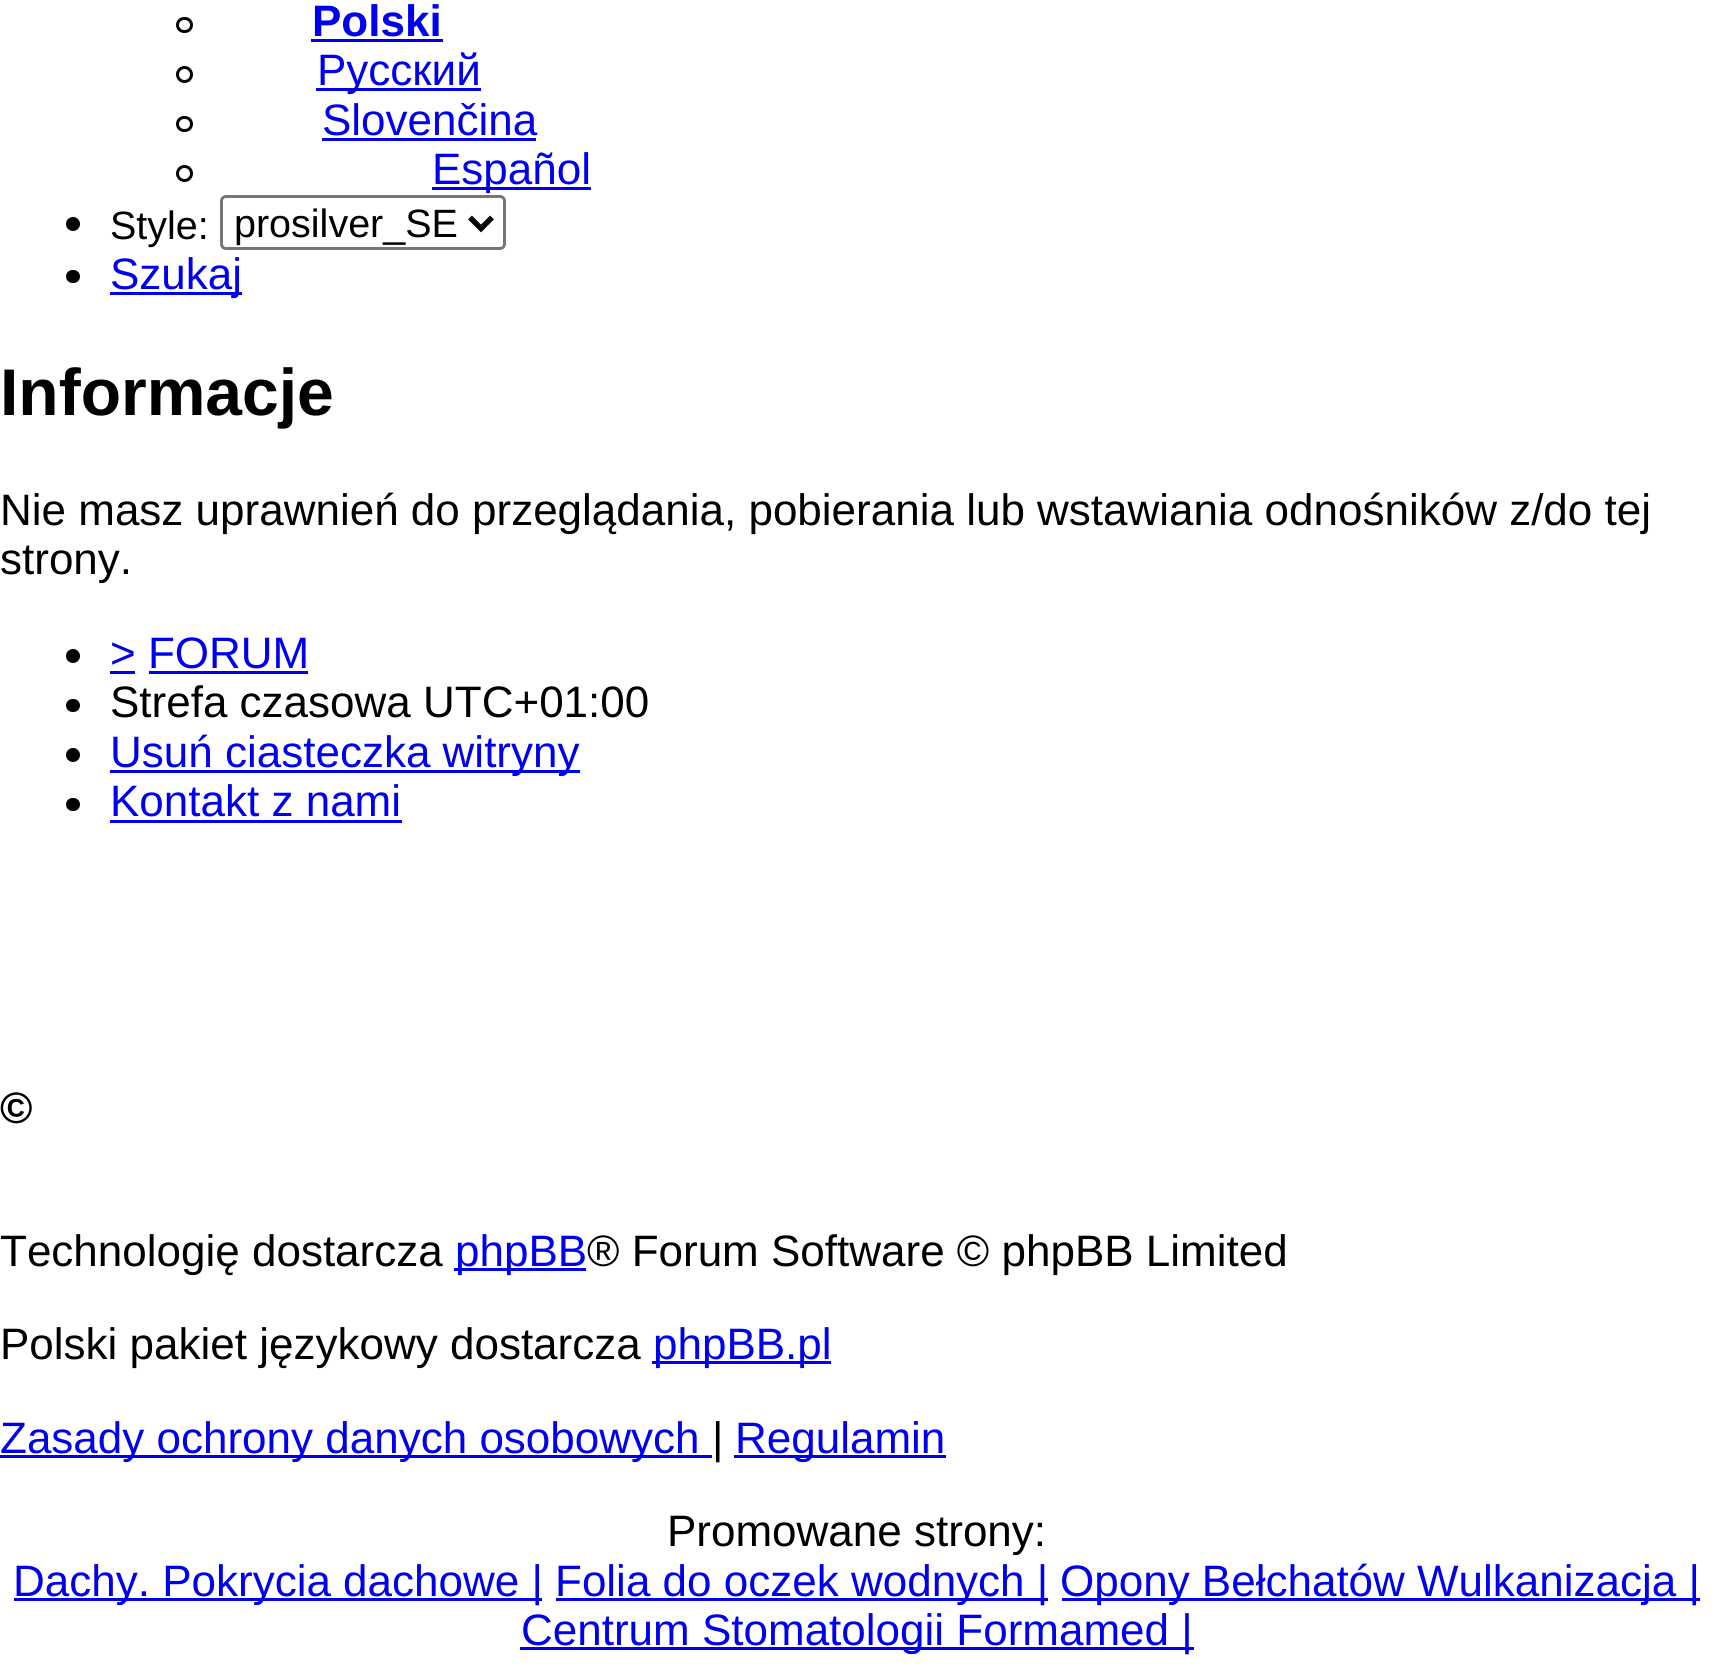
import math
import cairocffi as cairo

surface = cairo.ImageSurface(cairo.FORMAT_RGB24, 1712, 1669)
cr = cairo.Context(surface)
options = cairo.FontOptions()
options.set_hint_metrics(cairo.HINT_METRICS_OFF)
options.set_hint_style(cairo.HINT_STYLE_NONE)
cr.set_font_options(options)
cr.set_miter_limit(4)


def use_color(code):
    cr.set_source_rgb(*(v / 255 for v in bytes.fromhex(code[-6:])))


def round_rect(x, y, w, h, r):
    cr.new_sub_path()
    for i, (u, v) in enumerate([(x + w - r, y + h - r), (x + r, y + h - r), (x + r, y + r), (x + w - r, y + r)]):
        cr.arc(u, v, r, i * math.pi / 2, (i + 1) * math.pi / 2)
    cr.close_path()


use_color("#ffffff")
cr.paint()
round_rect(177.5, 18.5, 14, 13, 6.5)
use_color("#000000")
cr.set_line_width(3)
cr.stroke()
cr.select_font_face("Liberation Sans", cairo.FONT_SLANT_NORMAL, cairo.FONT_WEIGHT_BOLD)
cr.set_font_size(44)
use_color("#0000ee")
cr.move_to(312, 36)
cr.show_text("Polski")
cr.rectangle(311, 39, 132, 3)
cr.fill()
cr.arc(184.5, 74.5, 7, 0, 2 * math.pi)
use_color("#000000")
cr.stroke()
use_color("#0000ee")
cr.rectangle(316, 88, 165, 3)
cr.fill()
cr.select_font_face("Liberation Sans")
cr.move_to(317, 85)
cr.show_text("Русский")
round_rect(177.5, 117.5, 14, 13, 6.5)
use_color("#000000")
cr.stroke()
use_color("#0000ee")
cr.move_to(322, 135)
cr.show_text("Slovenčina")
cr.rectangle(322, 138, 214, 3)
cr.fill()
cr.arc(184.5, 173.5, 7, 0, 2 * math.pi)
use_color("#000000")
cr.stroke()
use_color("#0000ee")
cr.rectangle(432, 187, 159, 3)
cr.fill()
cr.move_to(432, 184)
cr.show_text("Español")
use_color("#000000")
cr.new_path()
cr.arc(73, 224, 7, 0, 2 * math.pi)
cr.fill()
cr.set_font_size(39.5)
cr.move_to(110, 239)
cr.show_text("Style:")
round_rect(221.5, 196.5, 283, 52, 4.5)
use_color("#767676")
cr.stroke()
cr.new_path()
cr.move_to(470, 217.5)
cr.line_to(481, 228.5)
cr.line_to(492, 217.5)
use_color("#000000")
cr.set_line_width(5.5)
cr.stroke()
cr.move_to(234, 237)
cr.show_text("prosilver_SE")
round_rect(66, 270, 14, 13, 6.5)
cr.fill()
use_color("#0000ee")
cr.rectangle(110, 292, 132, 3)
cr.fill()
cr.set_font_size(44)
cr.move_to(110, 289)
cr.show_text("Szukaj")
cr.select_font_face("Liberation Sans", cairo.FONT_SLANT_NORMAL, cairo.FONT_WEIGHT_BOLD)
cr.set_font_size(66)
use_color("#000000")
cr.move_to(0, 415)
cr.show_text("Informacje")
cr.select_font_face("Liberation Sans")
cr.set_font_size(44)
cr.move_to(0, 525)
cr.show_text("Nie masz uprawnień do przeglądania, pobierania lub wstawiania odnośników z/do tej")
cr.move_to(0, 574)
cr.show_text("strony.")
cr.new_path()
cr.arc(73, 656, 7, 0, 2 * math.pi)
cr.fill()
use_color("#0000ee")
cr.move_to(110, 668)
cr.show_text("> FORUM")
cr.rectangle(110, 671, 25, 3)
cr.fill()
cr.rectangle(149, 671, 159, 3)
cr.fill()
use_color("#000000")
round_rect(66, 699, 14, 13, 6.5)
cr.fill()
cr.move_to(110, 717)
cr.show_text("Strefa czasowa UTC+01:00")
cr.new_path()
cr.arc(73, 755, 7, 0, 2 * math.pi)
cr.fill()
use_color("#0000ee")
cr.rectangle(110, 770, 470, 3)
cr.fill()
cr.move_to(110, 767)
cr.show_text("Usuń ciasteczka witryny")
use_color("#000000")
round_rect(66, 798, 14, 13, 6.5)
cr.fill()
use_color("#0000ee")
cr.move_to(110, 816)
cr.show_text("Kontakt z nami")
cr.rectangle(110, 820, 292, 3)
cr.fill()
cr.select_font_face("Liberation Sans", cairo.FONT_SLANT_NORMAL, cairo.FONT_WEIGHT_BOLD)
use_color("#000000")
cr.move_to(0, 1123)
cr.show_text("©")
cr.select_font_face("Liberation Sans")
cr.move_to(0, 1266)
cr.show_text("Technologię dostarcza")
use_color("#0000ee")
cr.rectangle(454, 1268, 132, 3)
cr.fill()
cr.move_to(455, 1266)
cr.show_text("phpBB")
use_color("#000000")
cr.move_to(587, 1266)
cr.show_text("® Forum Software © phpBB Limited")
cr.move_to(0, 1359)
cr.show_text("Polski pakiet językowy dostarcza")
use_color("#0000ee")
cr.rectangle(652, 1361, 179, 3)
cr.fill()
cr.move_to(653, 1359)
cr.show_text("phpBB.pl")
cr.rectangle(0, 1455, 712, 3)
cr.fill()
cr.move_to(0, 1453)
cr.show_text("Zasady ochrony danych osobowych")
use_color("#000000")
cr.move_to(712, 1453)
cr.show_text("|")
use_color("#0000ee")
cr.rectangle(734, 1455, 212, 3)
cr.fill()
cr.move_to(735, 1453)
cr.show_text("Regulamin")
use_color("#000000")
cr.move_to(667, 1546)
cr.show_text("Promowane strony:")
use_color("#0000ee")
cr.rectangle(14, 1598, 528, 3)
cr.fill()
cr.move_to(13, 1596)
cr.show_text("Dachy. Pokrycia dachowe |")
cr.rectangle(556, 1598, 492, 3)
cr.fill()
cr.move_to(555, 1596)
cr.show_text("Folia do oczek wodnych |")
cr.rectangle(1062, 1598, 638, 3)
cr.fill()
cr.move_to(1060, 1596)
cr.show_text("Opony Bełchatów Wulkanizacja |")
cr.rectangle(520, 1647, 674, 3)
cr.fill()
cr.move_to(521, 1645)
cr.show_text("Centrum Stomatologii Formamed |")
surface.write_to_png("result.png")
